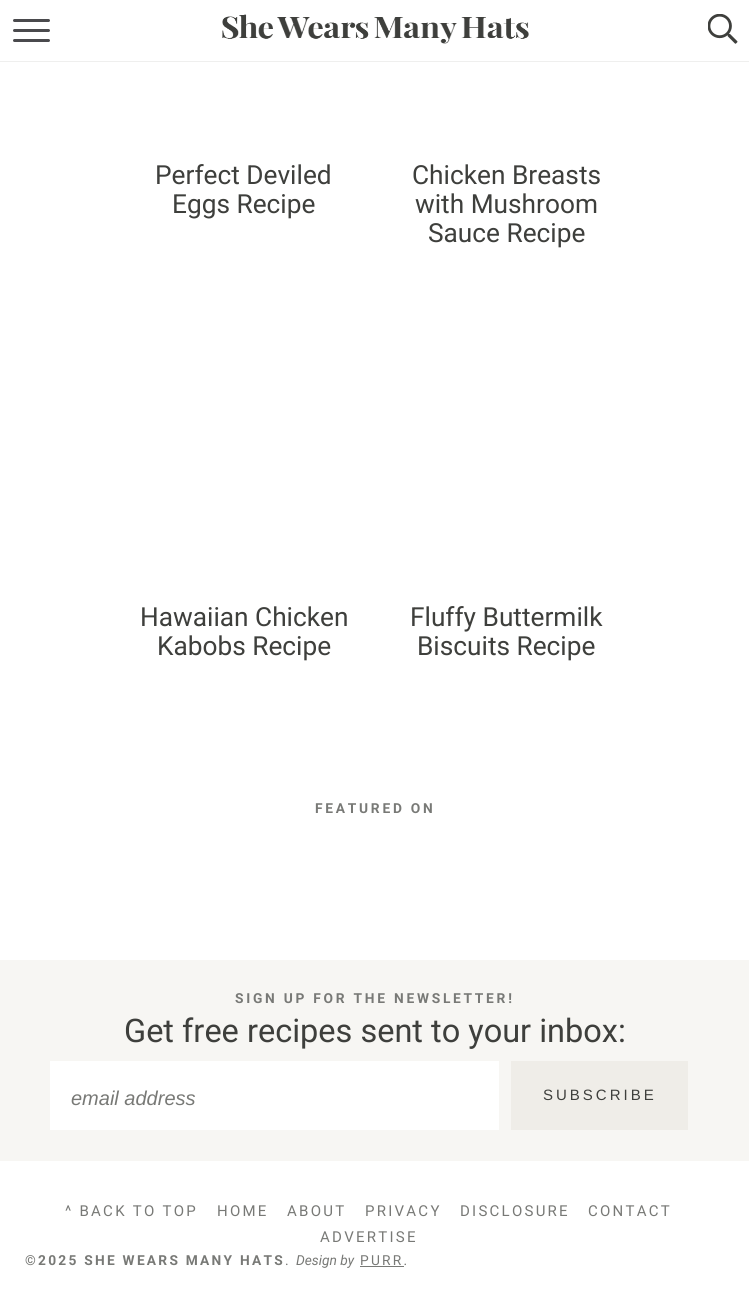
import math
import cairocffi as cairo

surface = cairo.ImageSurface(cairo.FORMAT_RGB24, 749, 1311)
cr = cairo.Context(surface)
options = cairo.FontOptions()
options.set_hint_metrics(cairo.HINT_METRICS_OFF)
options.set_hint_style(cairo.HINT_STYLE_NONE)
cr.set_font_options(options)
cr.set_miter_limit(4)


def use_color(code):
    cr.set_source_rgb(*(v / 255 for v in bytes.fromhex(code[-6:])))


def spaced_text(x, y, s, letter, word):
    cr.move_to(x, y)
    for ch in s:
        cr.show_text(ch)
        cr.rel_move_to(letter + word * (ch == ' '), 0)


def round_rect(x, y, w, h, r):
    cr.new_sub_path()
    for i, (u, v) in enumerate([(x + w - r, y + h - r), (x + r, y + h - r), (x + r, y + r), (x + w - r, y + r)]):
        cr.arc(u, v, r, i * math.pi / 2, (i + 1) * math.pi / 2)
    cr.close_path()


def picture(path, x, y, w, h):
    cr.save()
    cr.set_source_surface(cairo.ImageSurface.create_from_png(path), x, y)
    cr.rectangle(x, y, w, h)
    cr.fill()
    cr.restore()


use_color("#ffffff")
cr.paint()
use_color("#efefee")
cr.rectangle(0, 61, 749, 1)
cr.fill()
use_color("#4a4a4d")
round_rect(13, 29, 37, 3, 1.5)
cr.fill()
round_rect(13, 19, 37, 3, 1.5)
cr.fill()
round_rect(13, 39, 37, 3, 1.5)
cr.fill()
picture("img1.png", 222, 14, 307, 30)
picture("img2.png", 708, 14, 30, 30)
cr.select_font_face("Roboto")
cr.set_font_size(26.25)
use_color("#3e3f3c")
cr.move_to(155, 184)
cr.show_text("Perfect Deviled")
cr.move_to(172, 213)
cr.show_text("Eggs Recipe")
cr.move_to(412, 184)
cr.show_text("Chicken Breasts")
cr.move_to(415, 213)
cr.show_text("with Mushroom")
cr.move_to(428, 242)
cr.show_text("Sauce Recipe")
cr.move_to(140, 626)
cr.show_text("Hawaiian Chicken")
cr.move_to(157, 655)
cr.show_text("Kabobs Recipe")
cr.move_to(410, 626)
cr.show_text("Fluffy Buttermilk")
cr.move_to(417, 655)
cr.show_text("Biscuits Recipe")
cr.select_font_face("Roboto", cairo.FONT_SLANT_NORMAL, cairo.FONT_WEIGHT_BOLD)
cr.set_font_size(13.75)
use_color("#787976")
spaced_text(315, 813, "FEATURED ON", 2.75, 0)
use_color("#f7f6f3")
cr.rectangle(0, 960, 749, 201)
cr.fill()
use_color("#787976")
spaced_text(235, 1003, "SIGN UP FOR THE NEWSLETTER!", 2.75, 0)
cr.select_font_face("Roboto")
cr.set_font_size(32.5)
use_color("#3e3f3c")
cr.move_to(124, 1042)
cr.show_text("Get free recipes sent to your inbox:")
use_color("#ffffff")
cr.rectangle(50, 1061, 449, 69)
cr.fill()
cr.select_font_face("Liberation Sans", cairo.FONT_SLANT_ITALIC)
cr.set_font_size(20)
use_color("#787976")
cr.move_to(71, 1105)
cr.show_text("email address")
use_color("#efede8")
cr.rectangle(511, 1061, 177, 69)
cr.fill()
cr.select_font_face("Liberation Sans")
cr.set_font_size(15)
use_color("#3e3f3c")
spaced_text(543, 1100, "SUBSCRIBE", 3, 0)
cr.select_font_face("Roboto")
use_color("#787976")
spaced_text(65, 1216, "^ BACK TO TOP", 2.25, 0)
spaced_text(217, 1216, "HOME", 2.25, 0)
spaced_text(287, 1216, "ABOUT", 2.25, 0)
spaced_text(365, 1216, "PRIVACY", 2.25, 0)
spaced_text(460, 1216, "DISCLOSURE", 2.25, 0)
spaced_text(588, 1216, "CONTACT", 2.25, 0)
spaced_text(320, 1242, "ADVERTISE", 2.25, 0)
cr.select_font_face("Roboto", cairo.FONT_SLANT_NORMAL, cairo.FONT_WEIGHT_BOLD)
cr.set_font_size(13.75)
spaced_text(25, 1265, "©2025 SHE WEARS MANY HATS", 2.25, 0)
cr.select_font_face("Roboto")
spaced_text(285, 1265, ".", 2.25, 0)
cr.select_font_face("Roboto", cairo.FONT_SLANT_ITALIC)
cr.move_to(296, 1265)
cr.show_text("Design by")
cr.select_font_face("Roboto")
spaced_text(360, 1265, "PURR.", 2.25, 0)
cr.rectangle(360, 1266, 44, 1)
cr.fill()
surface.write_to_png("result.png")
